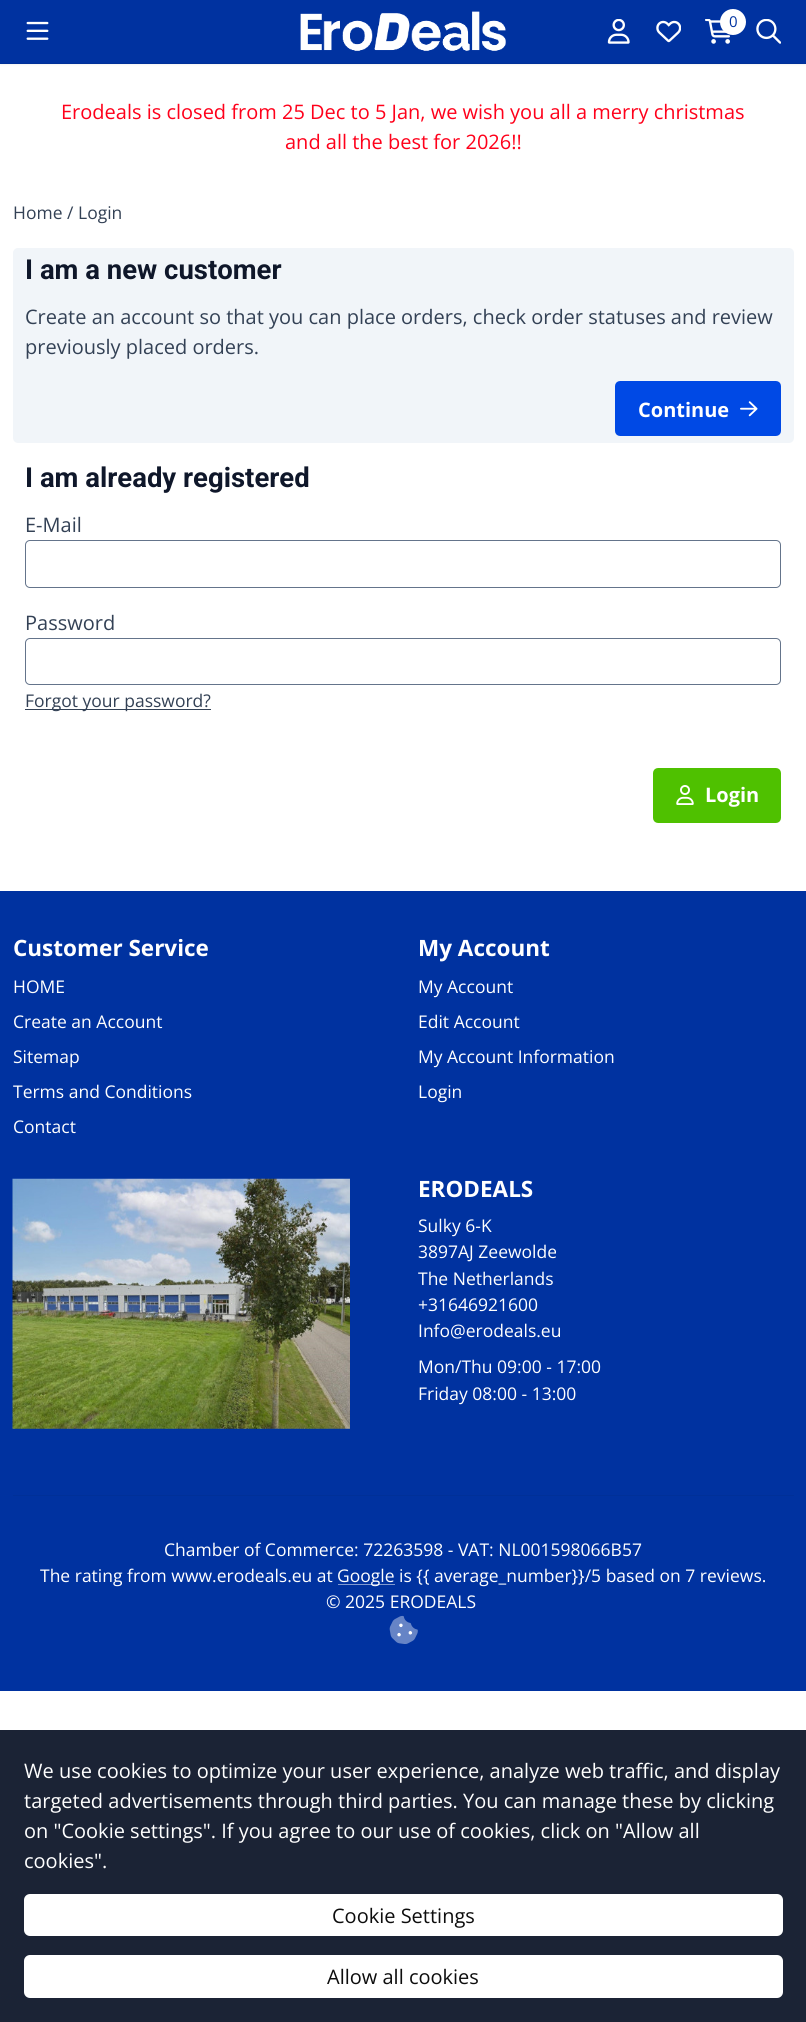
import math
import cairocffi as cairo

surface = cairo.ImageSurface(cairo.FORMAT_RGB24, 806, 2022)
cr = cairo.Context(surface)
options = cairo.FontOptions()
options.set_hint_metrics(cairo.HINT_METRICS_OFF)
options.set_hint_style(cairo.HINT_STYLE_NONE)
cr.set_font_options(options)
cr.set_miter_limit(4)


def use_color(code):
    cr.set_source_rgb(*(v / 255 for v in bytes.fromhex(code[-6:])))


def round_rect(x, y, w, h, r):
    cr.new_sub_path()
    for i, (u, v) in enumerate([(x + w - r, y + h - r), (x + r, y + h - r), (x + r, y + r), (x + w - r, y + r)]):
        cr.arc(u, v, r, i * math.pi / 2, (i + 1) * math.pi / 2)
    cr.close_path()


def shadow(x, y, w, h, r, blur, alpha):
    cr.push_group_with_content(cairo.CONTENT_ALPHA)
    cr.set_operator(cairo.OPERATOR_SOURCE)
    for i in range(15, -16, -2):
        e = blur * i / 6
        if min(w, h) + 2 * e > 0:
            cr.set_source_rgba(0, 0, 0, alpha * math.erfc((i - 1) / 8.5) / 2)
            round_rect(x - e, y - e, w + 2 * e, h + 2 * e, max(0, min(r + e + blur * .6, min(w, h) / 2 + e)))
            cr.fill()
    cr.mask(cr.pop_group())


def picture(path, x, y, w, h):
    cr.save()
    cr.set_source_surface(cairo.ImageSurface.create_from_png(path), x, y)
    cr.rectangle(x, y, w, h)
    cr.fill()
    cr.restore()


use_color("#ffffff")
cr.paint()
use_color("#000000")
shadow(0, 1, 806, 64, 0, 1, 0.05)
use_color("#0032a0")
cr.rectangle(0, 0, 806, 63)
cr.fill()
use_color("#003098")
cr.rectangle(0, 63, 806, 1)
cr.fill()
picture("img1.png", 26, 21, 23, 19)
picture("img2.png", 300, 11, 206, 40)
picture("img3.png", 607, 19, 23, 25)
picture("img4.png", 656, 20, 25, 23)
picture("img5.png", 705, 19, 25, 25)
use_color("#ffffff")
cr.arc(733, 22, 13, 0, 2 * math.pi)
cr.fill()
cr.select_font_face("Open Sans")
cr.set_font_size(15)
use_color("#0032a0")
cr.move_to(729, 27)
cr.show_text("0")
picture("img6.png", 756, 19, 25, 25)
cr.set_font_size(20)
use_color("#ff001a")
cr.move_to(61, 119)
cr.show_text("Erodeals is closed from 25 Dec to 5 Jan, we wish you all a merry christmas")
cr.move_to(285, 149)
cr.show_text("and all the best for 2026!!")
cr.set_font_size(17.5)
use_color("#334155")
cr.move_to(13, 219)
cr.show_text("Home")
cr.move_to(67, 219)
cr.show_text("/")
cr.move_to(78, 219)
cr.show_text("Login")
use_color("#f1f5f9")
round_rect(13, 248, 781, 195, 5)
cr.fill()
cr.select_font_face("Roboto", cairo.FONT_SLANT_NORMAL, cairo.FONT_WEIGHT_BOLD)
cr.set_font_size(27.5)
use_color("#0f172a")
cr.move_to(25, 279)
cr.show_text("I am a new customer")
cr.select_font_face("Open Sans")
cr.set_font_size(20)
use_color("#334155")
cr.move_to(25, 324)
cr.show_text("Create an account so that you can place orders, check order statuses and review")
cr.move_to(25, 354)
cr.show_text("previously placed orders.")
use_color("#0049e5")
round_rect(616.5, 382.5, 163, 52, 3.5)
cr.fill_preserve()
cr.set_line_width(3)
cr.stroke()
cr.select_font_face("Open Sans", cairo.FONT_SLANT_NORMAL, cairo.FONT_WEIGHT_BOLD)
use_color("#ffffff")
cr.move_to(638, 417)
cr.show_text("Continue")
picture("img7.png", 740, 401, 18, 16)
cr.select_font_face("Roboto", cairo.FONT_SLANT_NORMAL, cairo.FONT_WEIGHT_BOLD)
cr.set_font_size(27.5)
use_color("#0f172a")
cr.move_to(25, 487)
cr.show_text("I am already registered")
cr.select_font_face("Open Sans")
cr.set_font_size(20)
use_color("#334155")
cr.move_to(25, 532)
cr.show_text("E-Mail")
round_rect(25.5, 540.5, 755, 47, 4.5)
use_color("#64748b")
cr.set_line_width(1)
cr.stroke()
use_color("#334155")
cr.move_to(25, 630)
cr.show_text("Password")
round_rect(25.5, 638.5, 755, 46, 4.5)
use_color("#64748b")
cr.stroke()
use_color("#334155")
cr.rectangle(25, 709, 186, 1)
cr.fill()
cr.set_font_size(17.5)
cr.move_to(25, 707)
cr.show_text("Forgot your password?")
use_color("#4fc100")
round_rect(654.5, 769.5, 125, 52, 3.5)
cr.fill_preserve()
cr.set_line_width(3)
cr.stroke()
picture("img8.png", 676, 785, 18, 20)
cr.select_font_face("Open Sans", cairo.FONT_SLANT_NORMAL, cairo.FONT_WEIGHT_BOLD)
cr.set_font_size(20)
use_color("#ffffff")
cr.move_to(705, 802)
cr.show_text("Login")
use_color("#0032a0")
cr.rectangle(0, 891, 806, 800)
cr.fill()
cr.set_font_size(22.5)
use_color("#ffffff")
cr.move_to(13, 956)
cr.show_text("Customer Service")
cr.select_font_face("Open Sans")
cr.set_font_size(17.5)
cr.move_to(13, 993)
cr.show_text("HOME")
cr.move_to(13, 1028)
cr.show_text("Create an Account")
cr.move_to(13, 1063)
cr.show_text("Sitemap")
cr.move_to(13, 1098)
cr.show_text("Terms and Conditions")
cr.move_to(13, 1133)
cr.show_text("Contact")
cr.select_font_face("Open Sans", cairo.FONT_SLANT_NORMAL, cairo.FONT_WEIGHT_BOLD)
cr.set_font_size(22.5)
cr.move_to(418, 956)
cr.show_text("My Account")
cr.select_font_face("Open Sans")
cr.set_font_size(17.5)
cr.move_to(418, 993)
cr.show_text("My Account")
cr.move_to(418, 1028)
cr.show_text("Edit Account")
cr.move_to(418, 1063)
cr.show_text("My Account Information")
cr.move_to(418, 1098)
cr.show_text("Login")
picture("img9.png", 12, 1178, 338, 251)
cr.select_font_face("Open Sans", cairo.FONT_SLANT_NORMAL, cairo.FONT_WEIGHT_BOLD)
cr.set_font_size(22.5)
cr.move_to(418, 1197)
cr.show_text("ERODEALS")
cr.select_font_face("Open Sans")
cr.set_font_size(17.5)
cr.move_to(418, 1232)
cr.show_text("Sulky 6-K")
cr.move_to(418, 1258)
cr.show_text("3897AJ Zeewolde")
cr.move_to(418, 1285)
cr.show_text("The Netherlands")
cr.move_to(418, 1311)
cr.show_text("+31646921600")
cr.move_to(418, 1337)
cr.show_text("Info@erodeals.eu")
cr.move_to(418, 1373)
cr.show_text("Mon/Thu 09:00 - 17:00")
cr.move_to(418, 1400)
cr.show_text("Friday 08:00 - 13:00")
use_color("#003098")
cr.rectangle(13, 1495, 781, 1)
cr.fill()
use_color("#ffffff")
cr.move_to(164, 1556)
cr.show_text("Chamber of Commerce: 72263598 - VAT: NL001598066B57")
cr.move_to(40, 1582)
cr.show_text("The rating from www.erodeals.eu at")
use_color("#8099d0")
cr.rectangle(338, 1584, 57, 1)
cr.fill()
use_color("#ffffff")
cr.move_to(337, 1582)
cr.show_text("Google is {{ average_number}}/5 based on 7 reviews.")
cr.move_to(326, 1608)
cr.show_text("© 2025 ERODEALS")
picture("img10.png", 389, 1615, 29, 29)
use_color("#1b2335")
cr.rectangle(0, 1730, 806, 292)
cr.fill()
cr.set_font_size(20)
use_color("#ffffff")
cr.move_to(24, 1778)
cr.show_text("We use cookies to optimize your user experience, analyze web traffic, and display")
cr.move_to(24, 1808)
cr.show_text("targeted advertisements through third parties. You can manage these by clicking")
cr.move_to(24, 1838)
cr.show_text("on \"Cookie settings\". If you agree to our use of cookies, click on \"Allow all")
cr.move_to(24, 1868)
cr.show_text("cookies\".")
round_rect(24, 1894, 759, 42, 6)
cr.fill()
use_color("#0d0d0d")
cr.move_to(332, 1923)
cr.show_text("Cookie Settings")
use_color("#ffffff")
round_rect(24, 1955, 759, 43, 6)
cr.fill()
use_color("#0d0d0d")
cr.move_to(327, 1984)
cr.show_text("Allow all cookies")
surface.write_to_png("result.png")
